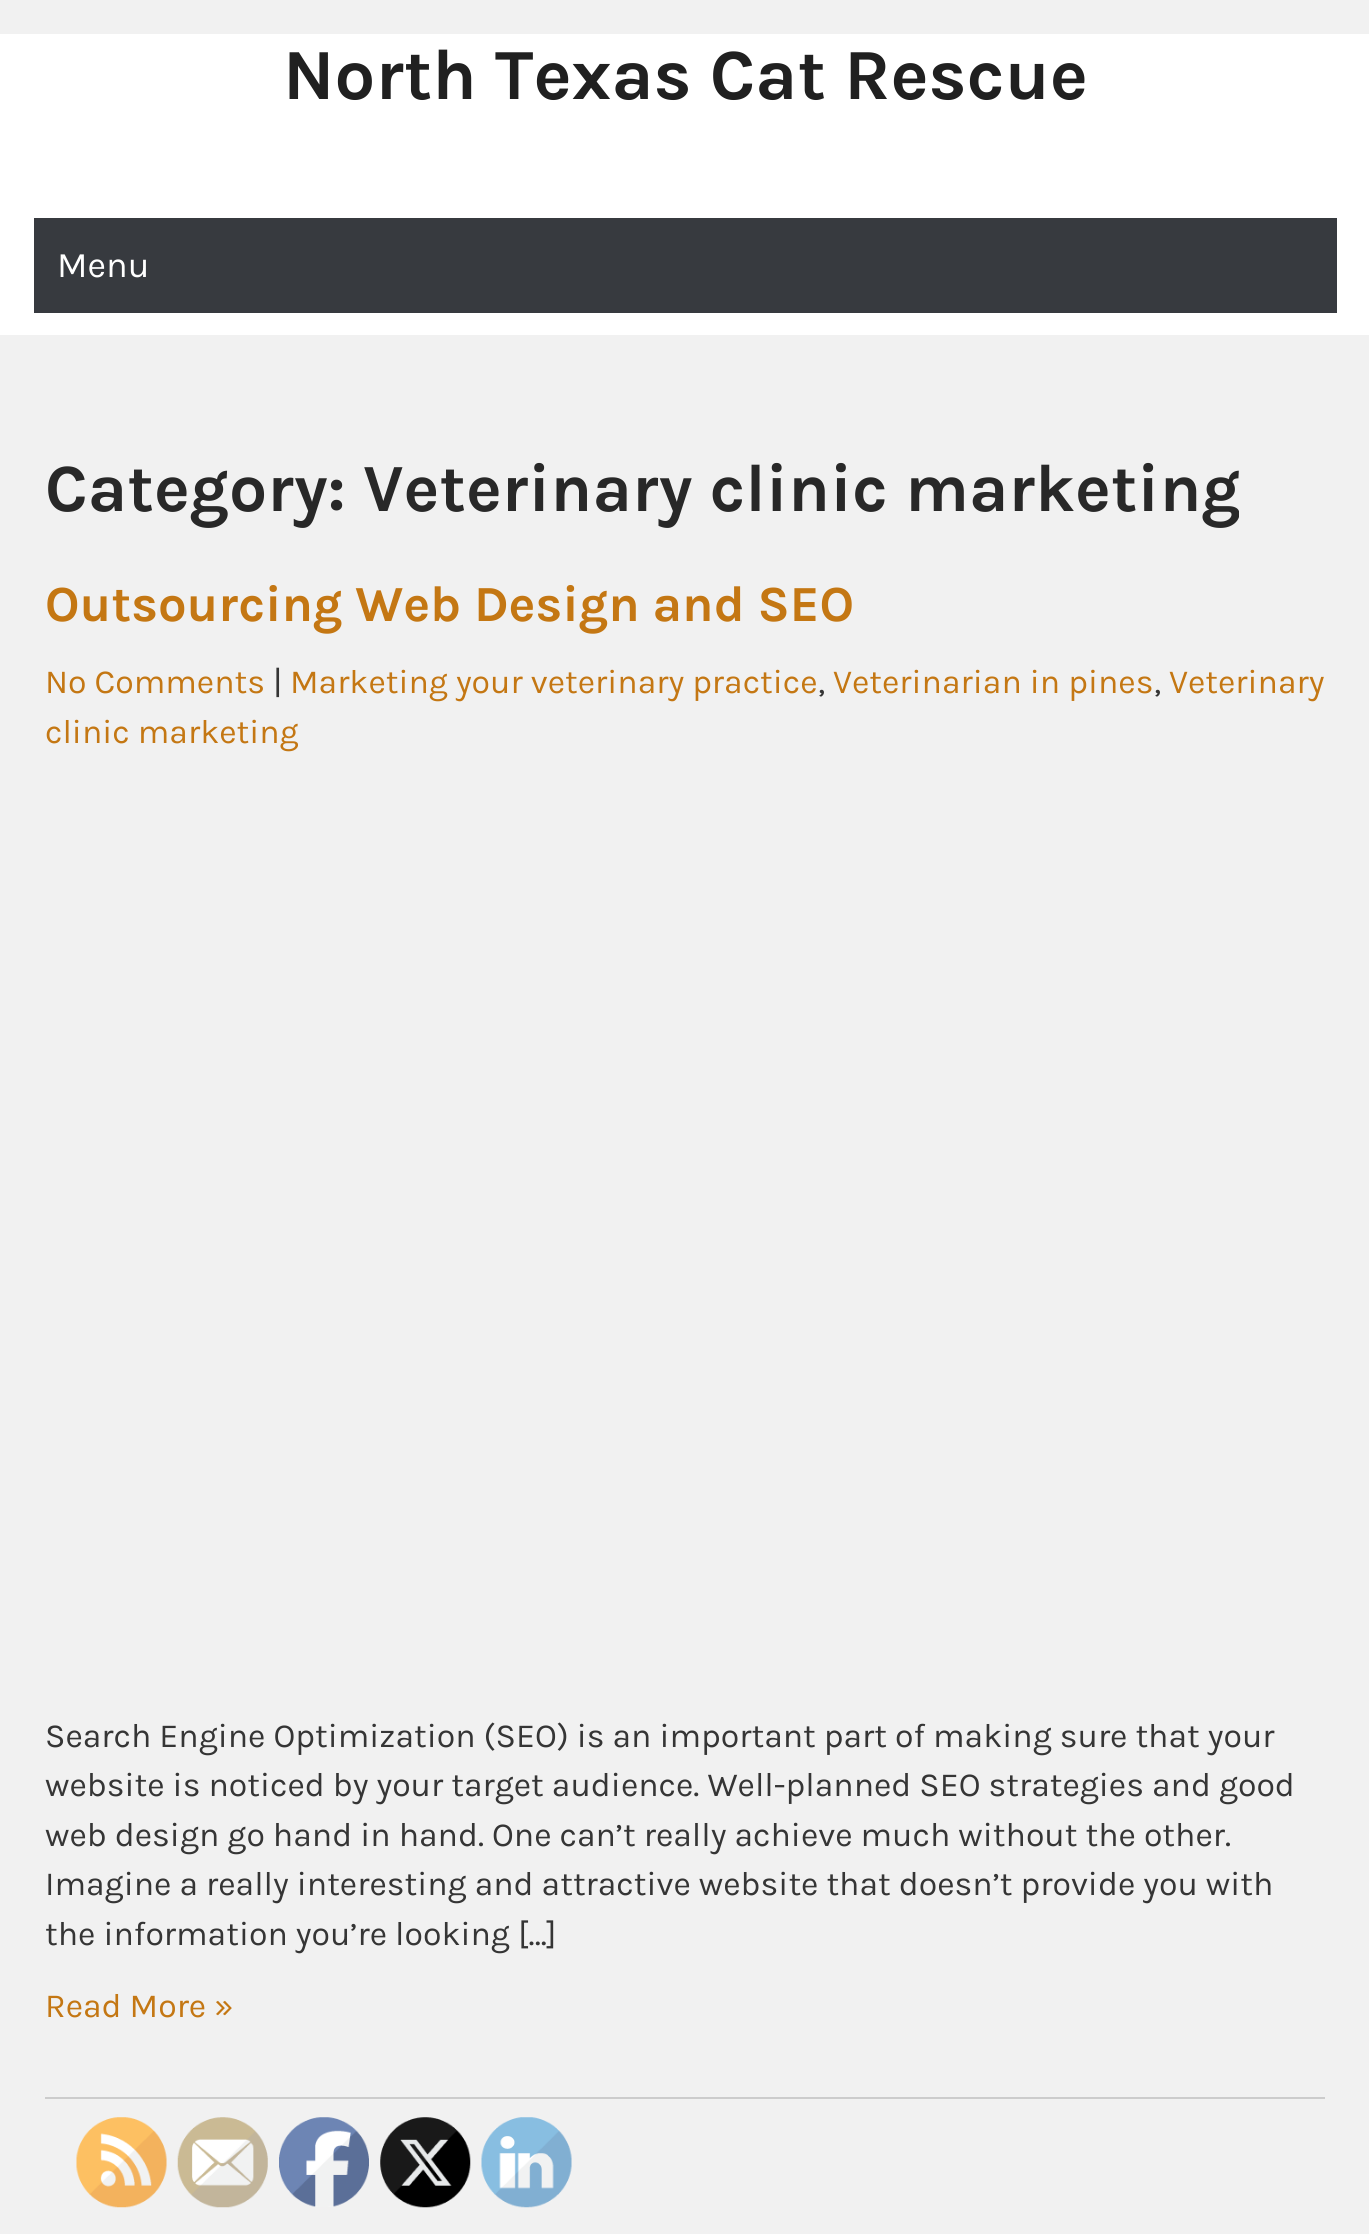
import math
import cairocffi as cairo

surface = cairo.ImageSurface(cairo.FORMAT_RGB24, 1369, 2234)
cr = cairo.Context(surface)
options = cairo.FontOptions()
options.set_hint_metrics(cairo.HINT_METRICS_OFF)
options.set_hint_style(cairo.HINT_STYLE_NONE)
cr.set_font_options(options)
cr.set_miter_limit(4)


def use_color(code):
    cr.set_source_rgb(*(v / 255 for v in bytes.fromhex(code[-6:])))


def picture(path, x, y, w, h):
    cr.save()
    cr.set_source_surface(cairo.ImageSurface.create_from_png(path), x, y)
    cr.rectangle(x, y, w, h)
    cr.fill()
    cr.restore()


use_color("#f1f1f1")
cr.paint()
use_color("#ffffff")
cr.rectangle(0, 34, 1369, 301)
cr.fill()
cr.select_font_face("Karla", cairo.FONT_SLANT_NORMAL, cairo.FONT_WEIGHT_BOLD)
cr.set_font_size(72)
use_color("#202020")
cr.move_to(283, 99)
cr.show_text("North Texas Cat Rescue")
use_color("#373a3f")
cr.rectangle(34, 218, 1303, 95)
cr.fill()
cr.select_font_face("Karla")
cr.set_font_size(36)
use_color("#ffffff")
cr.move_to(57, 277)
cr.show_text("Menu")
cr.select_font_face("Karla", cairo.FONT_SLANT_NORMAL, cairo.FONT_WEIGHT_BOLD)
cr.set_font_size(67.5)
use_color("#282828")
cr.move_to(45, 511)
cr.show_text("Category: Veterinary clinic marketing")
use_color("#cccccc")
cr.rectangle(45, 2097, 1280, 2)
cr.fill()
cr.set_font_size(50.6)
use_color("#c47713")
cr.move_to(45, 621)
cr.show_text("Outsourcing Web Design and SEO")
cr.select_font_face("Karla")
cr.set_font_size(33.75)
cr.move_to(45, 693)
cr.show_text("No Comments")
use_color("#353535")
cr.move_to(273, 693)
cr.show_text("|")
use_color("#c47713")
cr.move_to(290, 693)
cr.show_text("Marketing your veterinary practice")
use_color("#353535")
cr.move_to(818, 693)
cr.show_text(",")
use_color("#c47713")
cr.move_to(833, 693)
cr.show_text("Veterinarian in pines")
use_color("#353535")
cr.move_to(1154, 693)
cr.show_text(",")
use_color("#c47713")
cr.move_to(1169, 693)
cr.show_text("Veterinary")
cr.move_to(45, 743)
cr.show_text("clinic marketing")
use_color("#353535")
cr.move_to(45, 1747)
cr.show_text("Search Engine Optimization (SEO) is an important part of making sure that your")
cr.move_to(45, 1796)
cr.show_text("website is noticed by your target audience. Well-planned SEO strategies and good")
cr.move_to(45, 1846)
cr.show_text("web design go hand in hand. One can’t really achieve much without the other.")
cr.move_to(45, 1895)
cr.show_text("Imagine a really interesting and attractive website that doesn’t provide you with")
cr.move_to(45, 1945)
cr.show_text("the information you’re looking […]")
use_color("#c47713")
cr.move_to(45, 2017)
cr.show_text("Read More »")
picture("img1.png", 76, 2117, 91, 91)
picture("img2.png", 177, 2117, 91, 91)
picture("img3.png", 279, 2117, 90, 90)
picture("img4.png", 380, 2117, 91, 91)
picture("img5.png", 481, 2117, 91, 91)
surface.write_to_png("result.png")
